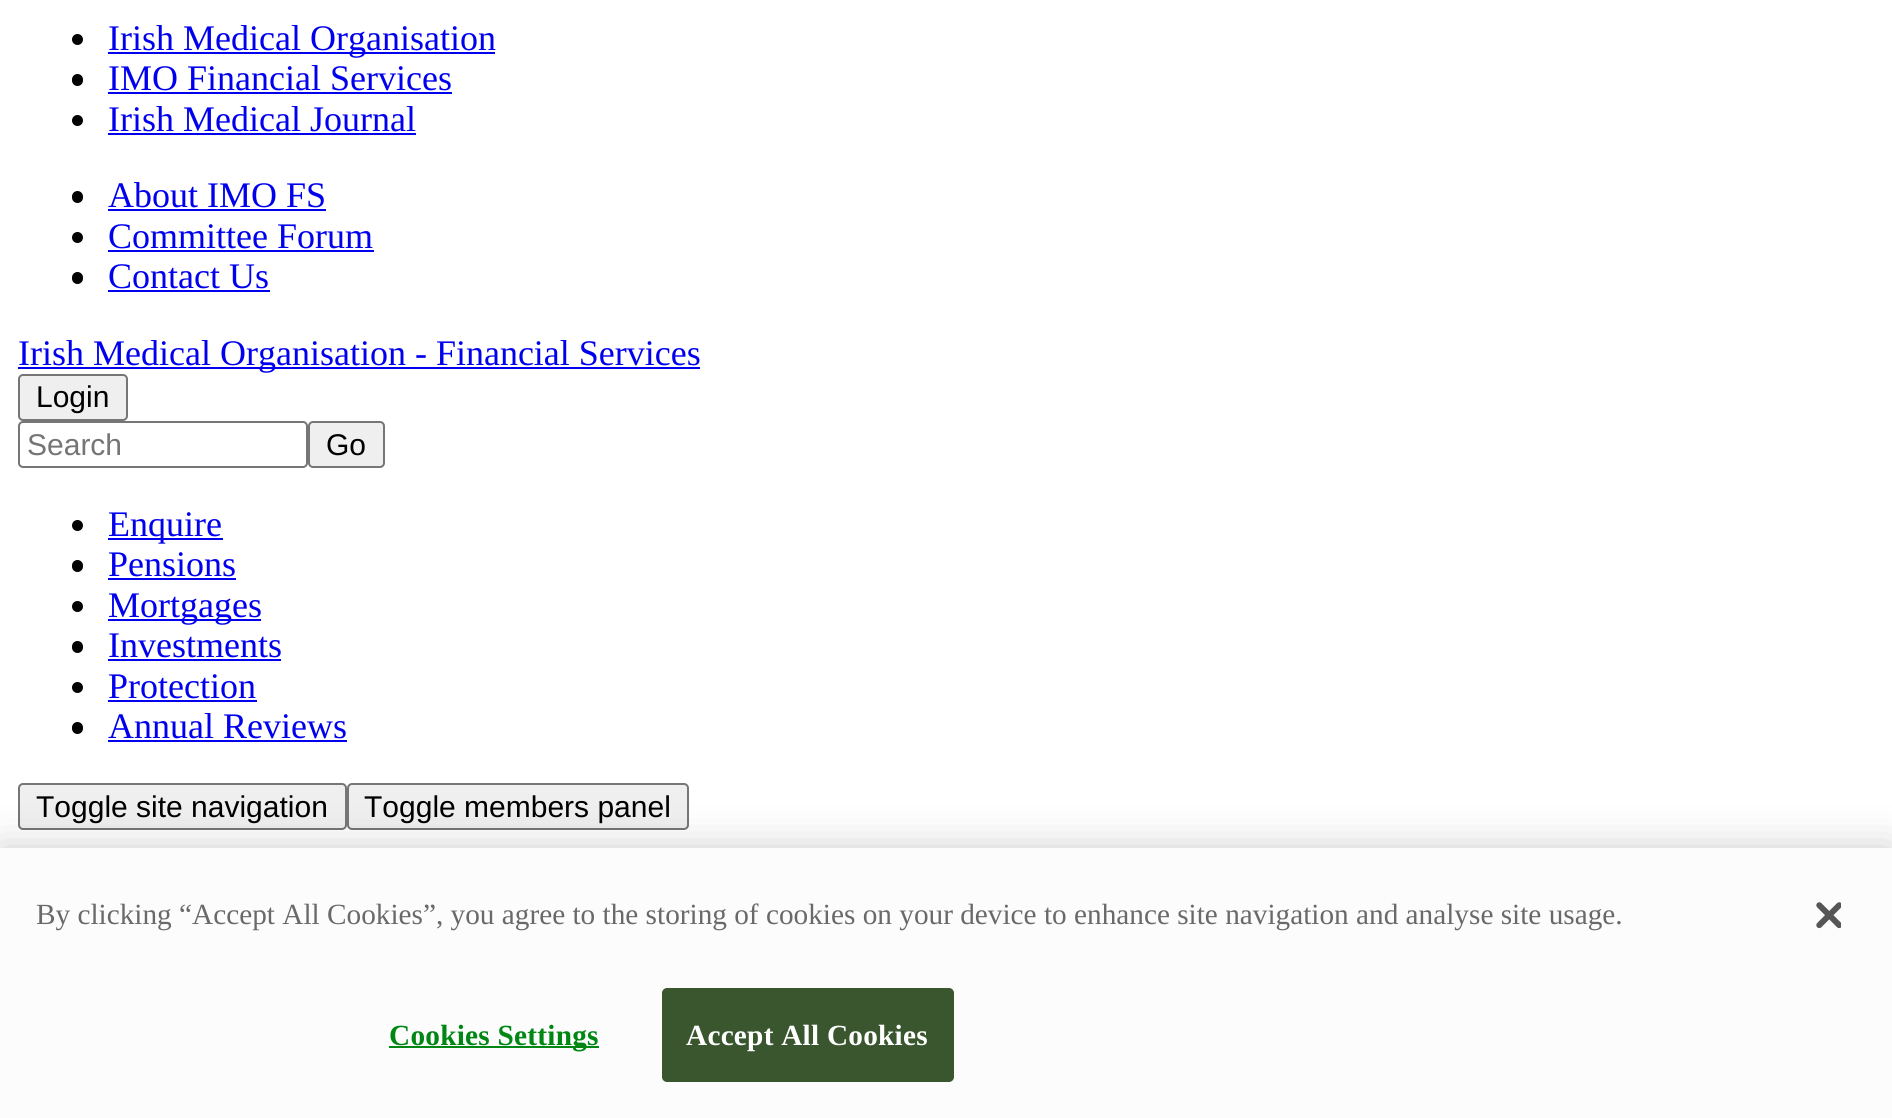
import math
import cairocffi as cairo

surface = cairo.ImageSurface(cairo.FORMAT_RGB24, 1892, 1118)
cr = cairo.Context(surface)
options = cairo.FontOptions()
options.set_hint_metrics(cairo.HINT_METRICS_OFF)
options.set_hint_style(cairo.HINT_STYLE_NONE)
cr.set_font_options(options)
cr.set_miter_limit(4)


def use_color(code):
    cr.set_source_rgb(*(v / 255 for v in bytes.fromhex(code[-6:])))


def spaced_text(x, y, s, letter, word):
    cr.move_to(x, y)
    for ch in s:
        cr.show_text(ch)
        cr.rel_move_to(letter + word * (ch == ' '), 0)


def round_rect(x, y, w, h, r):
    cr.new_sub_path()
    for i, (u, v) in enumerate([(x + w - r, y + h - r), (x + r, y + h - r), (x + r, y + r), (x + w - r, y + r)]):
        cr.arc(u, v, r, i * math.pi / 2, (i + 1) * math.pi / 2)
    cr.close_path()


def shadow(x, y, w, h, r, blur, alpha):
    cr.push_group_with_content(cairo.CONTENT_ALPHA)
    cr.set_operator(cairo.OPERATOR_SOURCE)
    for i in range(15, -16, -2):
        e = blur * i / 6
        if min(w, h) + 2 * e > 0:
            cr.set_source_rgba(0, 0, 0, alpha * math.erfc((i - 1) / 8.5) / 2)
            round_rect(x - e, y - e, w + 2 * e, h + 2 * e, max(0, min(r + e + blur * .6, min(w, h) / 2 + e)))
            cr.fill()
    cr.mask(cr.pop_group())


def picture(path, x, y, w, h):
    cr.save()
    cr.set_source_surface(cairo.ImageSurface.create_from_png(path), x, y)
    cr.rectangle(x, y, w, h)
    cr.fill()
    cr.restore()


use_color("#ffffff")
cr.paint()
use_color("#000000")
cr.arc(77.5, 39.5, 5.5, 0, 2 * math.pi)
cr.fill()
use_color("#0000ee")
cr.rectangle(108, 52, 387, 2)
cr.fill()
cr.select_font_face("Liberation Serif")
cr.set_font_size(36)
cr.move_to(108, 50)
cr.show_text("Irish Medical Organisation")
use_color("#000000")
round_rect(72, 74, 11, 12, 5.5)
cr.fill()
use_color("#0000ee")
cr.move_to(108, 90)
cr.show_text("IMO Financial Services")
cr.rectangle(108, 92, 344, 2)
cr.fill()
use_color("#000000")
cr.arc(77.5, 120.5, 5.5, 0, 2 * math.pi)
cr.fill()
use_color("#0000ee")
cr.move_to(108, 131)
cr.show_text("Irish Medical Journal")
cr.rectangle(108, 133, 308, 2)
cr.fill()
use_color("#000000")
round_rect(72, 191, 11, 12, 5.5)
cr.fill()
use_color("#0000ee")
cr.move_to(108, 207)
cr.show_text("About IMO FS")
cr.rectangle(108, 209, 218, 2)
cr.fill()
use_color("#000000")
cr.arc(77.5, 237.5, 5.5, 0, 2 * math.pi)
cr.fill()
use_color("#0000ee")
cr.move_to(108, 248)
cr.show_text("Committee Forum")
cr.rectangle(108, 250, 266, 2)
cr.fill()
use_color("#000000")
round_rect(72, 272, 11, 12, 5.5)
cr.fill()
use_color("#0000ee")
cr.move_to(108, 288)
cr.show_text("Contact Us")
cr.rectangle(108, 290, 162, 2)
cr.fill()
cr.rectangle(18, 367, 682, 2)
cr.fill()
cr.move_to(18, 365)
cr.show_text("Irish Medical Organisation - Financial Services")
use_color("#efefef")
round_rect(19, 375, 108, 45, 4)
cr.fill_preserve()
use_color("#767676")
cr.stroke()
cr.select_font_face("Liberation Sans")
cr.set_font_size(30)
use_color("#000000")
cr.move_to(36, 407)
cr.show_text("Login")
round_rect(19, 422, 288, 45, 4)
use_color("#767676")
cr.stroke()
use_color("#757575")
cr.move_to(27, 455)
cr.show_text("Search")
use_color("#efefef")
round_rect(309, 422, 75, 45, 4)
cr.fill_preserve()
use_color("#767676")
cr.stroke()
use_color("#000000")
cr.move_to(326, 455)
cr.show_text("Go")
cr.new_path()
cr.arc(77.5, 525.5, 5.5, 0, 2 * math.pi)
cr.fill()
use_color("#0000ee")
cr.rectangle(108, 538, 115, 2)
cr.fill()
cr.select_font_face("Liberation Serif")
cr.set_font_size(36)
cr.move_to(108, 536)
cr.show_text("Enquire")
use_color("#000000")
round_rect(72, 560, 11, 12, 5.5)
cr.fill()
use_color("#0000ee")
cr.move_to(108, 576)
cr.show_text("Pensions")
cr.rectangle(108, 578, 128, 2)
cr.fill()
use_color("#000000")
cr.arc(77.5, 606.5, 5.5, 0, 2 * math.pi)
cr.fill()
use_color("#0000ee")
cr.rectangle(108, 619, 153, 2)
cr.fill()
cr.move_to(108, 617)
cr.show_text("Mortgages")
use_color("#000000")
round_rect(72, 641, 11, 12, 5.5)
cr.fill()
use_color("#0000ee")
cr.move_to(108, 657)
cr.show_text("Investments")
cr.rectangle(108, 659, 173, 2)
cr.fill()
use_color("#000000")
cr.arc(77.5, 687.5, 5.5, 0, 2 * math.pi)
cr.fill()
use_color("#0000ee")
cr.move_to(108, 698)
cr.show_text("Protection")
cr.rectangle(108, 700, 149, 2)
cr.fill()
use_color("#000000")
round_rect(72, 722, 11, 12, 5.5)
cr.fill()
use_color("#0000ee")
cr.move_to(108, 738)
cr.show_text("Annual Reviews")
cr.rectangle(108, 740, 239, 2)
cr.fill()
use_color("#efefef")
round_rect(19, 784, 327, 45, 4)
cr.fill_preserve()
use_color("#767676")
cr.stroke()
cr.select_font_face("Liberation Sans")
cr.set_font_size(30)
use_color("#000000")
cr.move_to(36, 817)
cr.show_text("Toggle site navigation")
use_color("#efefef")
round_rect(348, 784, 340, 45, 4)
cr.fill_preserve()
use_color("#767676")
cr.stroke()
use_color("#000000")
cr.move_to(364, 817)
cr.show_text("Toggle members panel")
use_color("#000000")
shadow(0, 848, 1892, 270, 0, 20, 0.2)
use_color("#fcfcfc")
cr.rectangle(0, 848, 1892, 270)
cr.fill()
cr.select_font_face("Liberation Serif")
cr.set_font_size(29.27)
use_color("#696969")
cr.move_to(36, 924)
cr.show_text("By clicking “Accept All Cookies”, you agree to the storing of cookies on your device to enhance site navigation and analyse site usage.")
picture("img1.png", 1816, 902, 25, 27)
use_color("#008613")
cr.rectangle(389, 1046, 210, 2)
cr.fill()
cr.select_font_face("Liberation Serif", cairo.FONT_SLANT_NORMAL, cairo.FONT_WEIGHT_BOLD)
spaced_text(389, 1045, "Cookies Settings", 0.25, 0)
use_color("#3a562e")
round_rect(663, 989, 290, 92, 4)
cr.fill_preserve()
cr.stroke()
use_color("#ffffff")
spaced_text(686, 1045, "Accept All Cookies", 0.25, 0)
surface.write_to_png("result.png")
